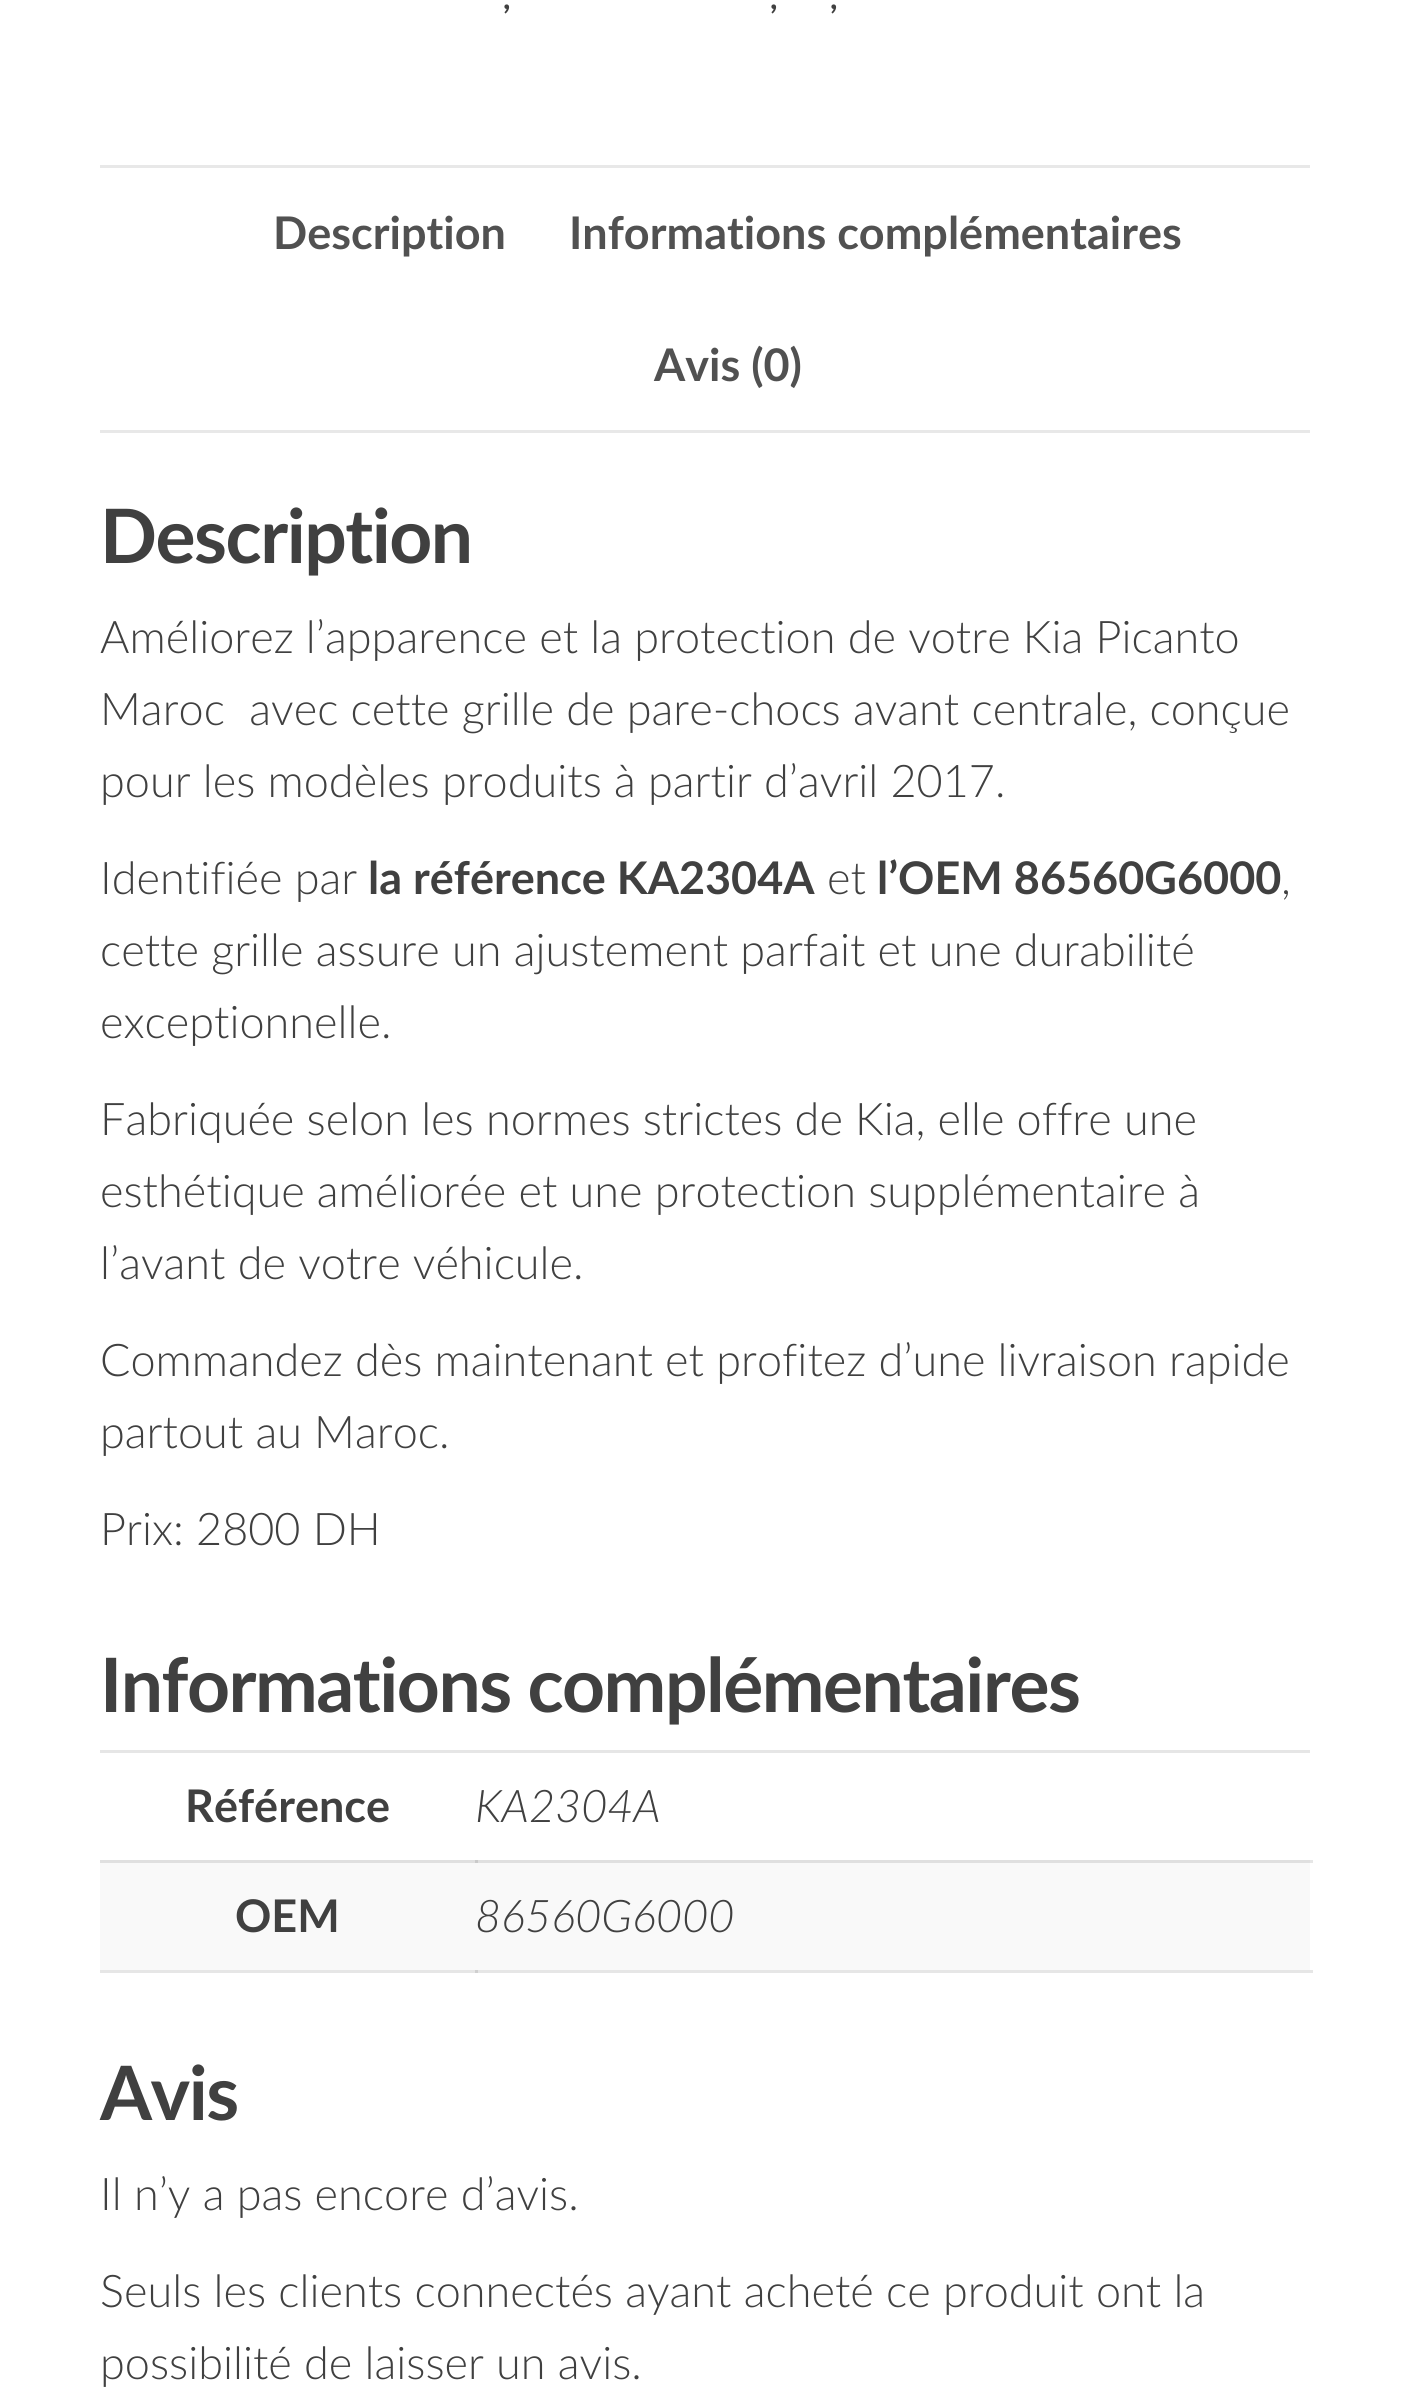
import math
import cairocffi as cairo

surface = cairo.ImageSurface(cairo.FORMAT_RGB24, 1408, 2403)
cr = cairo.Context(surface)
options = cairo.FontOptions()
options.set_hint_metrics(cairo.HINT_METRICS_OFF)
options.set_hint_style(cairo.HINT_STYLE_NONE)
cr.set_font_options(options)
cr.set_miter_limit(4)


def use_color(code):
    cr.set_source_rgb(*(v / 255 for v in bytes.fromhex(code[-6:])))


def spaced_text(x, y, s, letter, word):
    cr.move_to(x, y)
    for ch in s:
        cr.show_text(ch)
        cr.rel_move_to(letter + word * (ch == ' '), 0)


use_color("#ffffff")
cr.paint()
use_color("#e6e6e6")
cr.rectangle(1310, 1860, 3, 3)
cr.fill()
cr.rectangle(100, 1970, 1213, 3)
cr.fill()
cr.select_font_face("Lato", cairo.FONT_SLANT_NORMAL, cairo.FONT_WEIGHT_BOLD)
cr.set_font_size(32)
use_color("#404040")
cr.move_to(503, 9)
cr.show_text(",")
cr.move_to(770, 9)
cr.show_text(",")
cr.move_to(830, 9)
cr.show_text(",")
use_color("#e8e8e8")
cr.rectangle(100, 165, 1210, 3)
cr.fill()
cr.rectangle(100, 430, 1210, 3)
cr.fill()
cr.set_font_size(45)
use_color("#515151")
cr.move_to(273, 249)
cr.show_text("Description")
cr.move_to(569, 249)
cr.show_text("Informations complémentaires")
cr.move_to(654, 381)
cr.show_text("Avis (0)")
cr.set_font_size(75)
use_color("#404040")
spaced_text(100, 563, "Description", -1.5, 0)
cr.select_font_face("Lato Light")
cr.set_font_size(45)
cr.move_to(100, 653)
cr.show_text("Améliorez l’apparence et la protection de votre Kia Picanto")
cr.move_to(100, 725)
cr.show_text("Maroc  avec cette grille de pare-chocs avant centrale, conçue")
cr.move_to(100, 797)
cr.show_text("pour les modèles produits à partir d’avril 2017.")
cr.move_to(100, 894)
cr.show_text("Identifiée par")
cr.select_font_face("Lato", cairo.FONT_SLANT_NORMAL, cairo.FONT_WEIGHT_BOLD)
cr.move_to(368, 894)
cr.show_text("la référence KA2304A")
cr.select_font_face("Lato Light")
cr.move_to(827, 894)
cr.show_text("et")
cr.select_font_face("Lato", cairo.FONT_SLANT_NORMAL, cairo.FONT_WEIGHT_BOLD)
cr.move_to(877, 894)
cr.show_text("l’OEM 86560G6000")
cr.select_font_face("Lato Light")
cr.move_to(1281, 894)
cr.show_text(",")
cr.move_to(100, 966)
cr.show_text("cette grille assure un ajustement parfait et une durabilité")
cr.move_to(100, 1038)
cr.show_text("exceptionnelle.")
cr.move_to(100, 1135)
cr.show_text("Fabriquée selon les normes strictes de Kia, elle offre une")
cr.move_to(100, 1207)
cr.show_text("esthétique améliorée et une protection supplémentaire à")
cr.move_to(100, 1279)
cr.show_text("l’avant de votre véhicule.")
cr.move_to(100, 1376)
cr.show_text("Commandez dès maintenant et profitez d’une livraison rapide")
cr.move_to(100, 1448)
cr.show_text("partout au Maroc.")
cr.move_to(100, 1545)
cr.show_text("Prix: 2800 DH")
cr.select_font_face("Lato", cairo.FONT_SLANT_NORMAL, cairo.FONT_WEIGHT_BOLD)
cr.set_font_size(75)
spaced_text(100, 1712, "Informations complémentaires", -1.5, 0)
use_color("#e6e6e6")
cr.rectangle(100, 1750, 1210, 3)
cr.fill()
cr.set_font_size(45)
use_color("#404040")
cr.move_to(185, 1822)
cr.show_text("Référence")
cr.select_font_face("Lato Light", cairo.FONT_SLANT_ITALIC)
cr.move_to(475, 1822)
cr.show_text("KA2304A")
use_color("#f9f9f9")
cr.rectangle(100, 1863, 1210, 107)
cr.fill()
use_color("#e0e0e0")
cr.rectangle(100, 1860, 1210, 3)
cr.fill()
cr.select_font_face("Lato", cairo.FONT_SLANT_NORMAL, cairo.FONT_WEIGHT_BOLD)
use_color("#404040")
cr.move_to(235, 1932)
cr.show_text("OEM")
use_color("#cacaca")
cr.rectangle(475, 1860, 3, 3)
cr.fill()
use_color("#cfcfcf")
cr.rectangle(475, 1970, 3, 3)
cr.fill()
cr.select_font_face("Lato Light", cairo.FONT_SLANT_ITALIC)
use_color("#404040")
cr.move_to(475, 1932)
cr.show_text("86560G6000")
cr.select_font_face("Lato", cairo.FONT_SLANT_NORMAL, cairo.FONT_WEIGHT_BOLD)
cr.set_font_size(75)
spaced_text(100, 2120, "Avis", -1.5, 0)
cr.select_font_face("Lato Light")
cr.set_font_size(45)
cr.move_to(100, 2210)
cr.show_text("Il n’y a pas encore d’avis.")
cr.move_to(100, 2307)
cr.show_text("Seuls les clients connectés ayant acheté ce produit ont la")
cr.move_to(100, 2379)
cr.show_text("possibilité de laisser un avis.")
surface.write_to_png("result.png")
